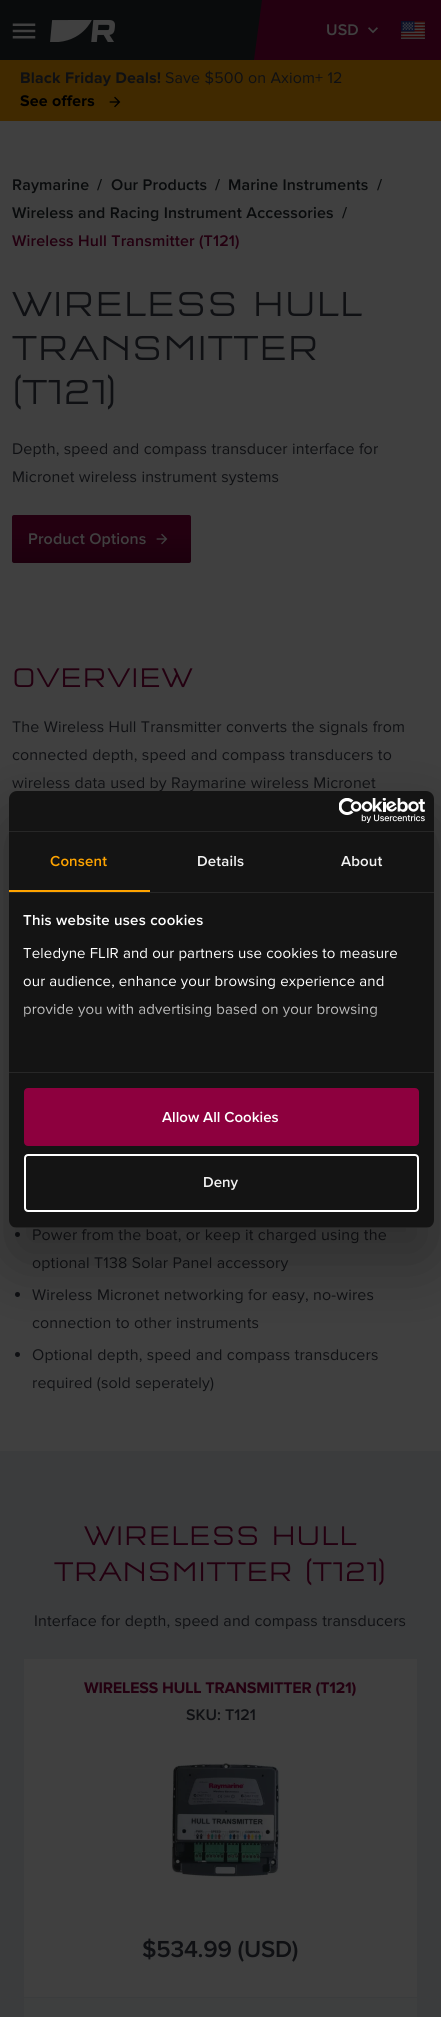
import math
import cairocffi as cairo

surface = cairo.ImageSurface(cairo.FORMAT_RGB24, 441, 2017)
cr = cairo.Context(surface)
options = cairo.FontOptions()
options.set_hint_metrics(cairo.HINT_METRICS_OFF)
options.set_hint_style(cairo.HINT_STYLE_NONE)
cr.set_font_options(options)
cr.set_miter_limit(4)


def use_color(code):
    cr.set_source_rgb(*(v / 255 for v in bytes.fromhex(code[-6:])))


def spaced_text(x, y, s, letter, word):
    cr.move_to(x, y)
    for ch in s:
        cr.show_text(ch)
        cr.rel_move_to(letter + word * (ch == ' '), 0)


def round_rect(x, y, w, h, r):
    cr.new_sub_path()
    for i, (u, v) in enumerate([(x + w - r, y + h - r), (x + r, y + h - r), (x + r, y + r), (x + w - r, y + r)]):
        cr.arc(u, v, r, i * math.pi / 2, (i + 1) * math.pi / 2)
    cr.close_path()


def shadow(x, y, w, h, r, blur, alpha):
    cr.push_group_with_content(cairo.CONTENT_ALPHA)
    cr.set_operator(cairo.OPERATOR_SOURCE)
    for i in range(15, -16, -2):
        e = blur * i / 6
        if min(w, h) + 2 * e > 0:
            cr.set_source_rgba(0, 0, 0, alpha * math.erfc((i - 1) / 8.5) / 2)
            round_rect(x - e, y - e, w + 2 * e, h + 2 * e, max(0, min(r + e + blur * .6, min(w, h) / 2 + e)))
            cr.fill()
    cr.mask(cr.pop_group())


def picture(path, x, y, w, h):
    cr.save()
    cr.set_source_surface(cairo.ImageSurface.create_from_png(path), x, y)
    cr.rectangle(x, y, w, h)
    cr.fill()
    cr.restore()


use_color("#404040")
cr.paint()
use_color("#090b0c")
cr.rectangle(0, 0, 262, 60)
cr.fill()
picture("img1.png", 12, 23, 24, 16)
picture("img2.png", 50, 20, 65, 22)
use_color("#230010")
cr.rectangle(274, 0, 167, 60)
cr.fill()
cr.new_path()
cr.move_to(262, 0)
cr.line_to(282, 0)
cr.line_to(274, 60)
cr.line_to(254, 60)
cr.close_path()
cr.fill()
cr.select_font_face("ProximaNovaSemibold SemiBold")
cr.set_font_size(16)
use_color("#404040")
spaced_text(326, 35, "USD", 0.15, 0)
picture("img3.png", 368, 27, 10, 7)
picture("img4.png", 401, 21, 24, 18)
use_color("#402900")
cr.rectangle(0, 60, 441, 61)
cr.fill()
picture("img5.png", 21, 72, 140, 15)
cr.select_font_face("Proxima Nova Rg")
use_color("#0f1013")
spaced_text(165, 83, "Save $500 on Axiom+ 12", 0.15, 0)
picture("img6.png", 20, 95, 75, 12)
picture("img7.png", 109, 96, 12, 12)
cr.select_font_face("ProximaNovaSemibold SemiBold")
use_color("#090b0c")
spaced_text(12, 190, "Raymarine", 0.15, 0)
spaced_text(97, 190, "/", 0.15, 0)
spaced_text(111, 190, "Our Products", 0.15, 0)
spaced_text(215, 190, "/", 0.15, 0)
spaced_text(228, 190, "Marine Instruments", 0.15, 0)
spaced_text(377, 190, "/", 0.15, 0)
spaced_text(12, 218, "Wireless and Racing Instrument Accessories", 0.15, 0)
spaced_text(342, 218, "/", 0.15, 0)
use_color("#230010")
spaced_text(12, 246, "Wireless Hull Transmitter (T121)", 0.15, 0)
cr.select_font_face("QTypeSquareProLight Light")
cr.set_font_size(36)
use_color("#0f1013")
spaced_text(12, 316, "WIRELESS HULL", 0.75, 0)
spaced_text(12, 360, "TRANSMITTER", 0.75, 0)
spaced_text(12, 404, "(T121)", 0.75, 0)
cr.select_font_face("Proxima Nova Rg")
cr.set_font_size(16)
spaced_text(12, 454, "Depth, speed and compass transducer interface for", 0.15, 0)
spaced_text(12, 482, "Micronet wireless instrument systems", 0.15, 0)
gradient = cairo.LinearGradient(102, 515, 102, 563)
gradient.add_color_stop_rgba(0.38, 0.137, 0, 0.063, 1)
gradient.add_color_stop_rgba(1, 0.11, 0, 0.051, 1)
gradient.add_color_stop_rgba(1, 0.137, 0, 0.063, 1)
cr.set_source(gradient)
round_rect(12, 515, 179, 48, 2)
cr.fill()
cr.select_font_face("ProximaNovaSemibold SemiBold")
use_color("#404040")
spaced_text(28, 544, "Product Options", 0.15, 0)
picture("img8.png", 156, 533, 12, 12)
cr.select_font_face("QTypeSquareProLight Light")
cr.set_font_size(28)
use_color("#230010")
spaced_text(12, 687, "OVERVIEW", 0.6, 0)
cr.select_font_face("Proxima Nova Rg")
cr.set_font_size(16)
use_color("#0f1013")
spaced_text(12, 732, "The Wireless Hull Transmitter converts the signals from", 0.15, 0)
spaced_text(12, 760, "connected depth, speed and compass transducers to", 0.15, 0)
spaced_text(12, 788, "wireless data used by Raymarine wireless Micronet", 0.15, 0)
cr.new_path()
cr.arc(17.5, 1234.5, 2.5, 0, 2 * math.pi)
cr.fill()
spaced_text(32, 1240, "Power from the boat, or keep it charged using the", 0.15, 0)
spaced_text(32, 1268, "optional T138 Solar Panel accessory", 0.15, 0)
cr.new_path()
cr.arc(17.5, 1294.5, 2.5, 0, 2 * math.pi)
cr.fill()
spaced_text(32, 1300, "Wireless Micronet networking for easy, no-wires", 0.15, 0)
spaced_text(32, 1328, "connection to other instruments", 0.15, 0)
cr.new_path()
cr.arc(17.5, 1354.5, 2.5, 0, 2 * math.pi)
cr.fill()
spaced_text(32, 1360, "Optional depth, speed and compass transducers", 0.15, 0)
spaced_text(32, 1388, "required (sold seperately)", 0.15, 0)
use_color("#3b3c3d")
cr.rectangle(0, 1451, 441, 566)
cr.fill()
cr.select_font_face("QTypeSquareProLight Light")
cr.set_font_size(28)
use_color("#230010")
spaced_text(84, 1545, "WIRELESS HULL", 0.6, 0)
spaced_text(54, 1581, "TRANSMITTER (T121)", 0.6, 0)
cr.select_font_face("Proxima Nova Rg")
cr.set_font_size(16)
use_color("#0f1013")
spaced_text(34, 1626, "Interface for depth, speed and compass transducers", 0.15, 0)
use_color("#404040")
cr.rectangle(24, 1659, 393, 338)
cr.fill()
picture("img9.png", 84, 1682, 272, 15)
cr.select_font_face("ProximaNovaSemibold SemiBold")
use_color("#0f1013")
cr.move_to(186, 1720)
cr.show_text("SKU: T121")
picture("img10.png", 171, 1763, 109, 114)
cr.set_font_size(24)
spaced_text(142, 1957, "$534.99 (USD)", -0.25, 0)
use_color("#3e3f3f")
cr.rectangle(24, 1998, 393, 19)
cr.fill()
use_color("#000000")
shadow(9, 823, 425, 437, 8, 34, 0.3)
use_color("#141414")
round_rect(9, 791, 425, 437, 8)
cr.fill()
use_color("#272727")
cr.rectangle(9, 831, 425, 1)
cr.fill()
picture("img11.png", 339, 798, 87, 25)
cr.rectangle(9, 892, 425, 1)
cr.fill()
use_color("#ffa400")
cr.rectangle(9, 890, 141, 2)
cr.fill()
cr.set_font_size(15)
spaced_text(50, 866, "Consent", 0.15, 0)
use_color("#f2f2f2")
spaced_text(197, 866, "Details", 0.15, 0)
spaced_text(341, 866, "About", 0.15, 0)
use_color("#272727")
cr.rectangle(9, 1072, 425, 1)
cr.fill()
use_color("#ffffff")
spaced_text(23, 925, "This website uses cookies", 0.25, 0)
cr.select_font_face("Proxima Nova Rg")
spaced_text(23, 958, "Teledyne FLIR and our partners use cookies to measure", 0.15, 0)
spaced_text(23, 986, "our audience, enhance your browsing experience and", 0.15, 0)
spaced_text(23, 1014, "provide you with advertising based on your browsing", 0.15, 0)
gradient = cairo.LinearGradient(215, 1072, 215, 997)
gradient.add_color_stop_rgba(0, 0.078, 0.078, 0.078, 1)
gradient.add_color_stop_rgba(0.5, 0.078, 0.078, 0.078, 0.8)
gradient.add_color_stop_rgba(1, 0.078, 0.078, 0.078, 0)
cr.set_source(gradient)
cr.rectangle(24, 1004, 353, 13)
cr.fill()
cr.save()
round_rect(9, 791, 425, 437, 8)
cr.clip()
cr.set_source_rgba(1, 1, 1, 0.08)
cr.rectangle(9, 1227, 425, 1)
cr.fill()
cr.restore()
use_color("#8d003e")
round_rect(25, 1089, 393, 56, 3)
cr.fill_preserve()
cr.stroke()
cr.select_font_face("ProximaNovaSemibold SemiBold")
use_color("#ffffff")
cr.move_to(162, 1122)
cr.show_text("Allow All Cookies")
round_rect(25, 1155, 393, 56, 3)
cr.stroke()
use_color("#f2f2f2")
cr.move_to(203, 1187)
cr.show_text("Deny")
surface.write_to_png("result.png")
